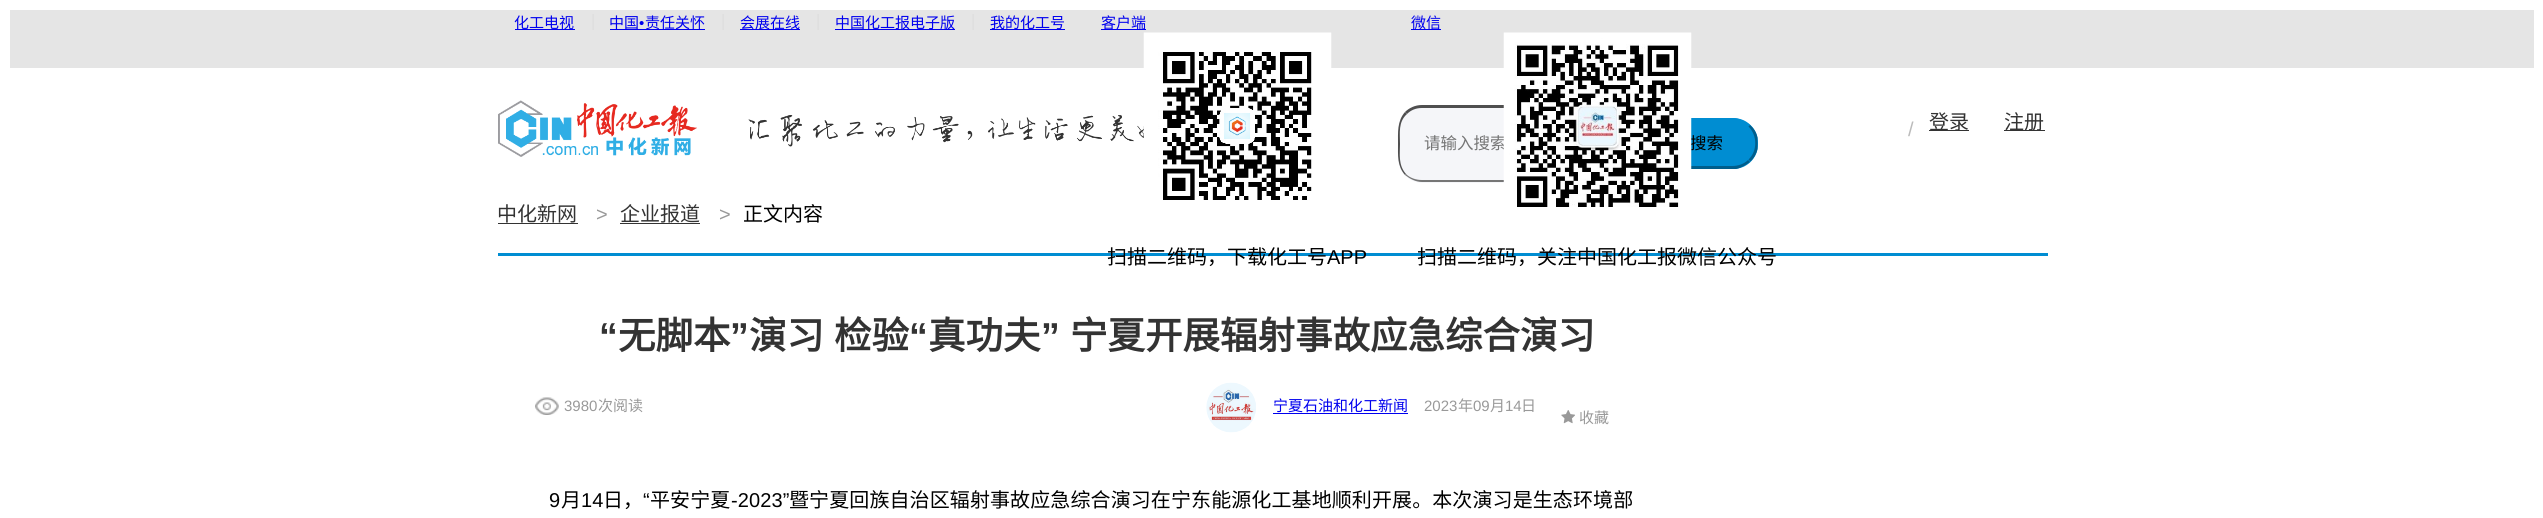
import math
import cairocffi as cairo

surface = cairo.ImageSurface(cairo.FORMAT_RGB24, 2543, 518)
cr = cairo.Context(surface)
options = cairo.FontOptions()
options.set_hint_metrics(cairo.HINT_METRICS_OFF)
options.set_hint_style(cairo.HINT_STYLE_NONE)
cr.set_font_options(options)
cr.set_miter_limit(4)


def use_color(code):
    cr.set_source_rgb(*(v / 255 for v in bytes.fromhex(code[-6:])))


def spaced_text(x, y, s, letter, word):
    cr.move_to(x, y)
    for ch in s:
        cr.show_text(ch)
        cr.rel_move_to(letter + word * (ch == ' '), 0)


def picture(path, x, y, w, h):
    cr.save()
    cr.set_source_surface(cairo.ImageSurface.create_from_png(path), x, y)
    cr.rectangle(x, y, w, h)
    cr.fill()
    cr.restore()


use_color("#ffffff")
cr.paint()
use_color("#e5e5e5")
cr.rectangle(10, 10, 2524, 58)
cr.fill()
picture("img1.png", 592, 14, 2, 16)
use_color("#0000ee")
cr.rectangle(515, 29, 60, 1)
cr.fill()
cr.select_font_face("Noto Sans CJK SC")
cr.set_font_size(15)
cr.move_to(514, 28)
cr.show_text("化工电视")
picture("img1.png", 722, 14, 2, 16)
cr.rectangle(610, 29, 95, 1)
cr.fill()
cr.move_to(609, 28)
cr.show_text("中国")
cr.select_font_face("Liberation Sans")
cr.move_to(639, 28)
cr.show_text("•")
cr.select_font_face("Noto Sans CJK SC")
cr.move_to(645, 28)
cr.show_text("责任关怀")
picture("img1.png", 817, 14, 2, 16)
cr.rectangle(740, 29, 60, 1)
cr.fill()
cr.move_to(740, 28)
cr.show_text("会展在线")
picture("img1.png", 972, 14, 2, 16)
cr.rectangle(835, 29, 120, 1)
cr.fill()
cr.move_to(835, 28)
cr.show_text("中国化工报电子版")
cr.rectangle(990, 29, 75, 1)
cr.fill()
cr.move_to(990, 28)
cr.show_text("我的化工号")
cr.rectangle(1101, 29, 45, 1)
cr.fill()
cr.move_to(1101, 28)
cr.show_text("客户端")
picture("img5.png", 748, 115, 396, 32)
picture("img2.png", 1143, 32, 189, 168)
use_color("#008dd2")
cr.rectangle(498, 253, 1550, 3)
cr.fill()
cr.set_font_size(20)
use_color("#000000")
cr.move_to(1107, 264)
cr.show_text("扫描二维码，下载化工号")
cr.select_font_face("Liberation Sans")
cr.move_to(1327, 264)
cr.show_text("APP")
use_color("#0000ee")
cr.rectangle(1411, 29, 30, 1)
cr.fill()
cr.select_font_face("Noto Sans CJK SC")
cr.set_font_size(15)
cr.move_to(1411, 28)
cr.show_text("微信")
use_color("#f5f6f9")
cr.new_path()
cr.move_to(1423, 105)
cr.line_to(1664, 105)
cr.line_to(1664, 183)
cr.line_to(1423, 183)
cr.curve_to(1409, 183, 1398, 172, 1398, 158)
cr.line_to(1398, 130)
cr.curve_to(1398, 116, 1409, 105, 1423, 105)
cr.close_path()
cr.fill()
use_color("#4f4f4f")
cr.new_path()
cr.move_to(1422, 105)
cr.curve_to(1415, 105, 1409, 108, 1405, 112)
cr.line_to(1407, 114)
cr.curve_to(1411, 110, 1416, 108, 1422, 108)
cr.line_to(1661, 108)
cr.line_to(1664, 105)
cr.close_path()
cr.fill()
use_color("#767676")
cr.new_path()
cr.move_to(1663, 182)
cr.line_to(1422, 182)
cr.curve_to(1416, 182, 1410, 179, 1405, 175)
cr.line_to(1406, 174)
cr.curve_to(1410, 178, 1416, 180, 1422, 180)
cr.line_to(1661, 180)
cr.close_path()
cr.fill()
cr.set_font_size(16.5)
use_color("#757575")
cr.move_to(1424, 149)
cr.show_text("请输入搜索")
use_color("#008dd2")
cr.new_path()
cr.move_to(1669, 118)
cr.line_to(1733, 118)
cr.curve_to(1747, 118, 1758, 129, 1758, 143)
cr.line_to(1758, 144)
cr.curve_to(1758, 158, 1747, 169, 1733, 169)
cr.line_to(1669, 169)
cr.close_path()
cr.fill()
cr.new_path()
cr.move_to(1750, 125)
cr.curve_to(1745, 121, 1739, 118, 1732, 118)
cr.line_to(1669, 118)
cr.line_to(1671, 120)
cr.line_to(1732, 120)
cr.curve_to(1739, 120, 1744, 123, 1748, 127)
cr.close_path()
cr.fill()
use_color("#005e8c")
cr.new_path()
cr.move_to(1750, 125)
cr.curve_to(1754, 128.5, 1756.5, 132.5, 1757.5, 137.5)
cr.line_to(1757.5, 149)
cr.curve_to(1756.5, 154, 1754, 158, 1750.5, 161.5)
cr.line_to(1748.5, 159.5)
cr.curve_to(1757.5, 151, 1757.5, 135.5, 1748.5, 126.5)
cr.close_path()
cr.fill()
cr.new_path()
cr.move_to(1669, 169)
cr.line_to(1672, 166)
cr.line_to(1732, 166)
cr.curve_to(1738, 166, 1744, 164, 1748, 160)
cr.line_to(1750, 162)
cr.curve_to(1746, 165, 1741, 168, 1736, 169)
cr.close_path()
cr.fill()
use_color("#000000")
cr.move_to(1690, 149)
cr.show_text("搜索")
picture("img3.png", 1503, 32, 189, 175)
cr.set_font_size(20)
cr.move_to(1417, 264)
cr.show_text("扫描二维码，关注中国化工报微信公众号")
picture("img4.png", 498, 100, 199, 57)
use_color("#4f4f4f")
cr.new_path()
cr.move_to(1405, 112)
cr.curve_to(1397, 121, 1398, 133, 1398, 144)
cr.curve_to(1398, 155, 1397, 166, 1405, 175)
cr.line_to(1406, 174)
cr.curve_to(1398, 165, 1400, 154, 1400, 144)
cr.curve_to(1400, 133, 1398, 122, 1407, 114)
cr.close_path()
cr.fill()
cr.select_font_face("Liberation Sans")
use_color("#bbbbbb")
cr.move_to(1908, 136)
cr.show_text("/")
use_color("#333333")
cr.rectangle(1929, 130, 40, 1)
cr.fill()
cr.select_font_face("Noto Sans CJK SC")
cr.move_to(1929, 129)
cr.show_text("登录")
cr.rectangle(2004, 130, 41, 1)
cr.fill()
cr.move_to(2004, 129)
cr.show_text("注册")
cr.move_to(497, 221)
cr.show_text("中化新网")
cr.rectangle(498, 223, 80, 1)
cr.fill()
cr.select_font_face("Liberation Sans")
use_color("#999999")
cr.move_to(596, 221)
cr.show_text(">")
cr.select_font_face("Noto Sans CJK SC")
use_color("#333333")
cr.move_to(620, 221)
cr.show_text("企业报道")
cr.rectangle(620, 223, 80, 1)
cr.fill()
cr.select_font_face("Liberation Sans")
use_color("#999999")
cr.move_to(719, 221)
cr.show_text(">")
cr.select_font_face("Noto Sans CJK SC")
use_color("#000000")
cr.move_to(743, 221)
cr.show_text("正文内容")
cr.select_font_face("Liberation Sans", cairo.FONT_SLANT_NORMAL, cairo.FONT_WEIGHT_BOLD)
cr.set_font_size(37.5)
use_color("#333333")
cr.move_to(599, 349)
cr.show_text("“")
cr.select_font_face("Noto Sans CJK SC", cairo.FONT_SLANT_NORMAL, cairo.FONT_WEIGHT_BOLD)
cr.move_to(618, 349)
cr.show_text("无脚本")
cr.select_font_face("Liberation Sans", cairo.FONT_SLANT_NORMAL, cairo.FONT_WEIGHT_BOLD)
cr.move_to(730, 349)
cr.show_text("”")
cr.select_font_face("Noto Sans CJK SC", cairo.FONT_SLANT_NORMAL, cairo.FONT_WEIGHT_BOLD)
cr.move_to(749, 349)
cr.show_text("演习")
cr.move_to(834, 349)
cr.show_text("检验")
cr.select_font_face("Liberation Sans", cairo.FONT_SLANT_NORMAL, cairo.FONT_WEIGHT_BOLD)
cr.move_to(909, 349)
cr.show_text("“")
cr.select_font_face("Noto Sans CJK SC", cairo.FONT_SLANT_NORMAL, cairo.FONT_WEIGHT_BOLD)
cr.move_to(928, 349)
cr.show_text("真功夫")
cr.select_font_face("Liberation Sans", cairo.FONT_SLANT_NORMAL, cairo.FONT_WEIGHT_BOLD)
cr.move_to(1041, 349)
cr.show_text("”")
cr.select_font_face("Noto Sans CJK SC", cairo.FONT_SLANT_NORMAL, cairo.FONT_WEIGHT_BOLD)
cr.move_to(1070, 349)
cr.show_text("宁夏开展辐射事故应急综合演习")
picture("img6.png", 535, 397, 24, 18)
cr.select_font_face("Liberation Sans")
cr.set_font_size(15)
use_color("#999999")
cr.move_to(564, 411)
cr.show_text("3980")
cr.select_font_face("Noto Sans CJK SC")
cr.move_to(598, 411)
cr.show_text("次阅读")
picture("img7.png", 1206, 382, 50, 51)
use_color("#0000ee")
cr.move_to(1273, 411)
cr.show_text("宁夏石油和化工新闻")
cr.rectangle(1273, 413, 135, 1)
cr.fill()
cr.select_font_face("Liberation Sans")
use_color("#999999")
cr.move_to(1424, 411)
cr.show_text("2023")
cr.select_font_face("Noto Sans CJK SC")
cr.move_to(1458, 411)
cr.show_text("年")
cr.select_font_face("Liberation Sans")
cr.move_to(1473, 411)
cr.show_text("09")
cr.select_font_face("Noto Sans CJK SC")
cr.move_to(1490, 411)
cr.show_text("月")
cr.select_font_face("Liberation Sans")
cr.move_to(1505, 411)
cr.show_text("14")
cr.select_font_face("Noto Sans CJK SC")
cr.move_to(1521, 411)
cr.show_text("日")
picture("img8.png", 1561, 410, 14, 14)
cr.move_to(1579, 423)
cr.show_text("收藏")
cr.select_font_face("Liberation Sans")
cr.set_font_size(20)
use_color("#000000")
spaced_text(549, 507, "9", 0.1, 0)
cr.select_font_face("Noto Sans CJK SC")
spaced_text(561, 507, "月", 0.1, 0)
cr.select_font_face("Liberation Sans")
spaced_text(581, 507, "14", 0.1, 0)
cr.select_font_face("Noto Sans CJK SC")
spaced_text(603, 507, "日，", 0.1, 0)
cr.select_font_face("Liberation Sans")
spaced_text(643, 507, "“", 0.1, 0)
cr.select_font_face("Noto Sans CJK SC")
spaced_text(650, 507, "平安宁夏", 0.1, 0)
cr.select_font_face("Liberation Sans")
spaced_text(731, 507, "-2023”", 0.1, 0)
cr.select_font_face("Noto Sans CJK SC")
spaced_text(789, 507, "暨宁夏回族自治区辐射事故应急综合演习在宁东能源化工基地顺利开展。本次演习是生态环境部", 0.1, 0)
surface.write_to_png("result.png")
